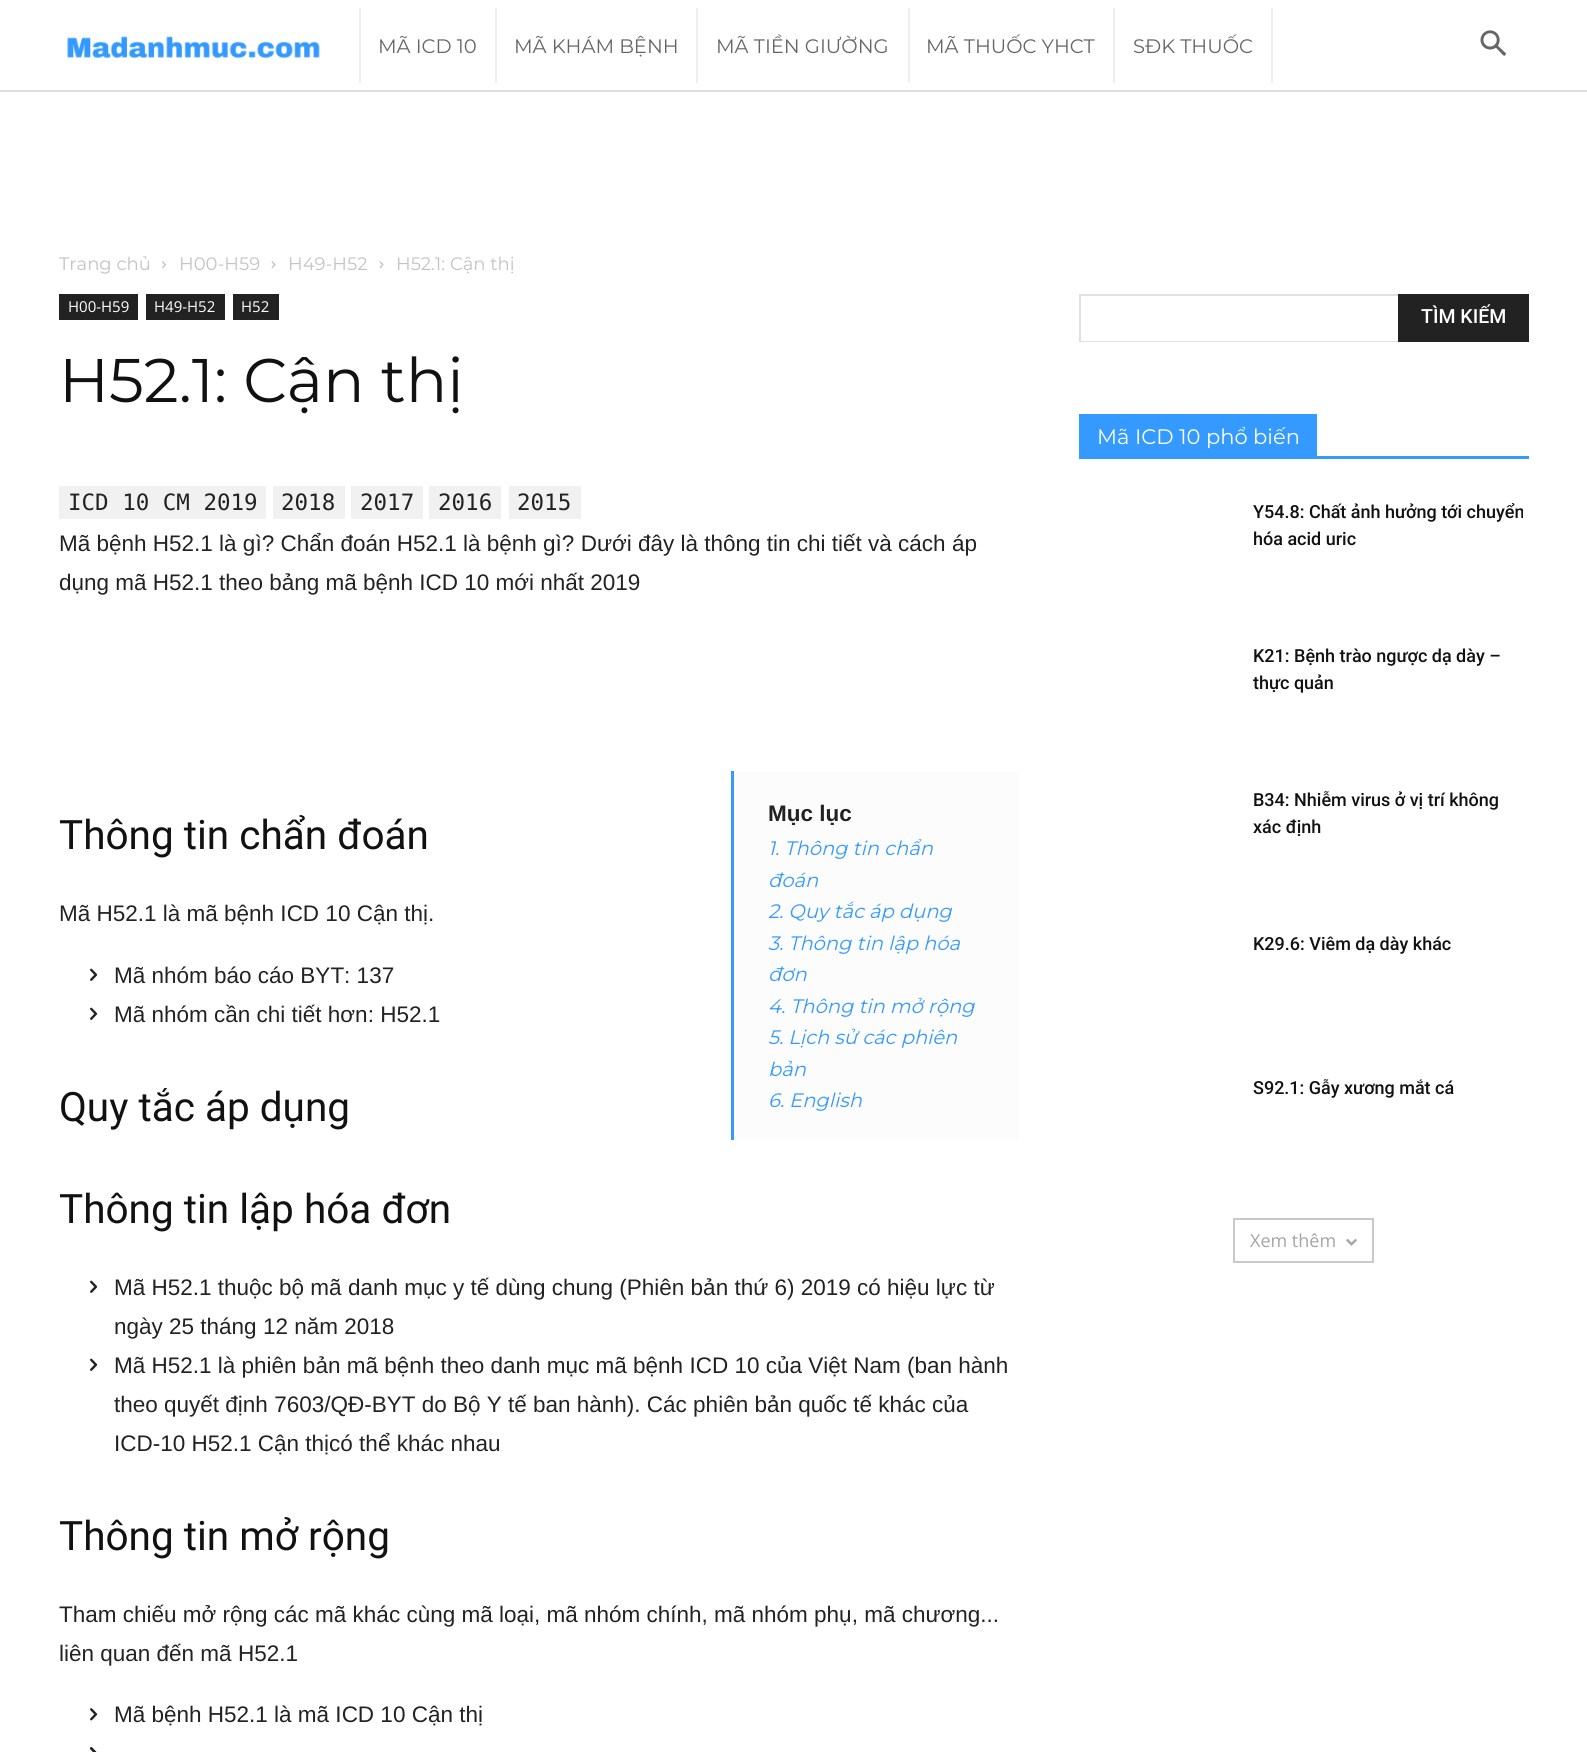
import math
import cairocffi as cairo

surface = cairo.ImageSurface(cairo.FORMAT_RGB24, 1587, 1752)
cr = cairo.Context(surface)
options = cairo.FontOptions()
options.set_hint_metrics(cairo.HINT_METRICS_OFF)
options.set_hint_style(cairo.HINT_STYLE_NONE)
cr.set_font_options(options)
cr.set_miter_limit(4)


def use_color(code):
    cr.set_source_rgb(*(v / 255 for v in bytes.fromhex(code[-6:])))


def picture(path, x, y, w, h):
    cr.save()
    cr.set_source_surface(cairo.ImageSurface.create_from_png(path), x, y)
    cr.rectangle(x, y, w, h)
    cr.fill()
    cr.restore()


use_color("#ffffff")
cr.paint()
use_color("#dddddd")
cr.rectangle(0, 90, 1587, 2)
cr.fill()
picture("img1.png", 67, 36, 253, 23)
use_color("#eeeeee")
cr.rectangle(495, 8, 2, 75)
cr.fill()
cr.rectangle(359, 8, 2, 75)
cr.fill()
cr.select_font_face("Montserrat")
cr.set_font_size(19.5)
use_color("#666666")
cr.move_to(378, 53)
cr.show_text("MÃ ICD 10")
use_color("#eeeeee")
cr.rectangle(696, 8, 2, 75)
cr.fill()
use_color("#666666")
cr.move_to(514, 53)
cr.show_text("MÃ KHÁM BỆNH")
use_color("#eeeeee")
cr.rectangle(908, 8, 2, 75)
cr.fill()
use_color("#666666")
cr.move_to(716, 53)
cr.show_text("MÃ TIỀN GIƯỜNG")
use_color("#eeeeee")
cr.rectangle(1113, 8, 2, 75)
cr.fill()
use_color("#666666")
cr.move_to(926, 53)
cr.show_text("MÃ THUỐC YHCT")
use_color("#eeeeee")
cr.rectangle(1271, 8, 2, 75)
cr.fill()
use_color("#666666")
cr.move_to(1133, 53)
cr.show_text("SĐK THUỐC")
picture("img2.png", 1480, 30, 26, 26)
cr.set_font_size(18)
use_color("#c3c3c3")
cr.move_to(59, 270)
cr.show_text("Trang chủ")
picture("img3.png", 162, 261, 4, 8)
cr.move_to(179, 270)
cr.show_text("H00-H59")
picture("img4.png", 271, 261, 5, 8)
cr.move_to(288, 270)
cr.show_text("H49-H52")
picture("img4.png", 379, 261, 5, 8)
cr.move_to(396, 270)
cr.show_text("H52.1: Cận thị")
use_color("#222222")
cr.rectangle(59, 294, 79, 26)
cr.fill()
cr.select_font_face("Open Sans")
cr.set_font_size(15)
use_color("#ffffff")
cr.move_to(68, 312)
cr.show_text("H00-H59")
use_color("#222222")
cr.rectangle(146, 294, 79, 26)
cr.fill()
use_color("#ffffff")
cr.move_to(154, 312)
cr.show_text("H49-H52")
use_color("#222222")
cr.rectangle(233, 294, 46, 26)
cr.fill()
use_color("#ffffff")
cr.move_to(241, 312)
cr.show_text("H52")
cr.select_font_face("Montserrat")
cr.set_font_size(61.5)
use_color("#111111")
cr.move_to(59, 402)
cr.show_text("H52.1: Cận thị")
use_color("#f1f1f1")
cr.rectangle(59, 486, 207, 33)
cr.fill()
cr.select_font_face("DejaVu Sans Mono")
cr.set_font_size(22.5)
use_color("#222222")
cr.move_to(68, 510)
cr.show_text("ICD 10 CM 2019")
use_color("#f1f1f1")
cr.rectangle(273, 486, 72, 33)
cr.fill()
use_color("#222222")
cr.move_to(281, 510)
cr.show_text("2018")
use_color("#f1f1f1")
cr.rectangle(351, 486, 72, 33)
cr.fill()
use_color("#222222")
cr.move_to(360, 510)
cr.show_text("2017")
use_color("#f1f1f1")
cr.rectangle(429, 486, 72, 33)
cr.fill()
use_color("#222222")
cr.move_to(438, 510)
cr.show_text("2016")
use_color("#f1f1f1")
cr.rectangle(509, 486, 72, 33)
cr.fill()
use_color("#222222")
cr.move_to(517, 510)
cr.show_text("2015")
cr.select_font_face("Liberation Sans")
cr.move_to(59, 551)
cr.show_text("Mã bệnh H52.1 là gì? Chẩn đoán H52.1 là bệnh gì? Dưới đây là thông tin chi tiết và cách áp")
cr.move_to(59, 590)
cr.show_text("dụng mã H52.1 theo bảng mã bệnh ICD 10 mới nhất 2019")
cr.select_font_face("Roboto")
cr.set_font_size(40.5)
use_color("#111111")
cr.move_to(59, 849)
cr.show_text("Thông tin chẩn đoán")
use_color("#fcfcfc")
cr.rectangle(734, 771, 285, 369)
cr.fill()
use_color("#349aff")
cr.rectangle(731, 771, 3, 369)
cr.fill()
cr.select_font_face("Liberation Sans", cairo.FONT_SLANT_NORMAL, cairo.FONT_WEIGHT_BOLD)
cr.set_font_size(22.5)
use_color("#222222")
cr.move_to(768, 821)
cr.show_text("Mục lục")
cr.select_font_face("Montserrat", cairo.FONT_SLANT_ITALIC)
cr.set_font_size(19.5)
use_color("#349aff")
cr.move_to(768, 855)
cr.show_text("1. Thông tin chẩn")
cr.move_to(768, 887)
cr.show_text("đoán")
cr.move_to(768, 918)
cr.show_text("2. Quy tắc áp dụng")
cr.move_to(768, 950)
cr.show_text("3. Thông tin lập hóa")
cr.move_to(768, 981)
cr.show_text("đơn")
cr.move_to(768, 1013)
cr.show_text("4. Thông tin mở rộng")
cr.move_to(768, 1044)
cr.show_text("5. Lịch sử các phiên")
cr.move_to(768, 1076)
cr.show_text("bản")
cr.move_to(768, 1107)
cr.show_text("6. English")
cr.select_font_face("Liberation Sans")
cr.set_font_size(22.5)
use_color("#222222")
cr.move_to(59, 921)
cr.show_text("Mã H52.1 là mã bệnh ICD 10 Cận thị.")
picture("img5.png", 90, 968, 8, 13)
cr.move_to(114, 983)
cr.show_text("Mã nhóm báo cáo BYT: 137")
picture("img5.png", 90, 1007, 8, 13)
cr.move_to(114, 1022)
cr.show_text("Mã nhóm cần chi tiết hơn: H52.1")
cr.select_font_face("Roboto")
cr.set_font_size(40.5)
use_color("#111111")
cr.move_to(59, 1121)
cr.show_text("Quy tắc áp dụng")
cr.move_to(59, 1223)
cr.show_text("Thông tin lập hóa đơn")
picture("img5.png", 90, 1280, 8, 13)
cr.select_font_face("Liberation Sans")
cr.set_font_size(22.5)
use_color("#222222")
cr.move_to(114, 1295)
cr.show_text("Mã H52.1 thuộc bộ mã danh mục y tế dùng chung (Phiên bản thứ 6) 2019 có hiệu lực từ")
cr.move_to(114, 1334)
cr.show_text("ngày 25 tháng 12 năm 2018")
picture("img5.png", 90, 1358, 8, 13)
cr.move_to(114, 1373)
cr.show_text("Mã H52.1 là phiên bản mã bệnh theo danh mục mã bệnh ICD 10 của Việt Nam (ban hành")
cr.move_to(114, 1412)
cr.show_text("theo quyết định 7603/QĐ-BYT do Bộ Y tế ban hành). Các phiên bản quốc tế khác của")
cr.move_to(114, 1451)
cr.show_text("ICD-10 H52.1 Cận thịcó thể khác nhau")
cr.select_font_face("Roboto")
cr.set_font_size(40.5)
use_color("#111111")
cr.move_to(59, 1550)
cr.show_text("Thông tin mở rộng")
cr.select_font_face("Liberation Sans")
cr.set_font_size(22.5)
use_color("#222222")
cr.move_to(59, 1622)
cr.show_text("Tham chiếu mở rộng các mã khác cùng mã loại, mã nhóm chính, mã nhóm phụ, mã chương...")
cr.move_to(59, 1661)
cr.show_text("liên quan đến mã H52.1")
picture("img6.png", 90, 1708, 8, 13)
cr.move_to(114, 1722)
cr.show_text("Mã bệnh H52.1 là mã ICD 10 Cận thị")
picture("img7.png", 90, 1747, 7, 5)
picture("img8.png", 90, 1747, 7, 5)
use_color("#e1e1e1")
cr.rectangle(1079, 294, 319, 2)
cr.fill()
cr.rectangle(1079, 341, 319, 1)
cr.fill()
cr.rectangle(1079, 294, 2, 48)
cr.fill()
use_color("#222222")
cr.rectangle(1398, 294, 131, 48)
cr.fill()
cr.select_font_face("Roboto Medium")
cr.set_font_size(19.5)
use_color("#ffffff")
cr.move_to(1421, 323)
cr.show_text("TÌM KIẾM")
use_color("#349aff")
cr.rectangle(1079, 456, 450, 3)
cr.fill()
cr.rectangle(1079, 414, 238, 42)
cr.fill()
cr.select_font_face("Montserrat")
cr.set_font_size(21)
use_color("#ffffff")
cr.move_to(1097, 444)
cr.show_text("Mã ICD 10 phổ biến")
cr.select_font_face("Roboto Medium")
cr.set_font_size(18)
use_color("#111111")
cr.move_to(1253, 518)
cr.show_text("Y54.8: Chất ảnh hưởng tới chuyển")
cr.move_to(1253, 545)
cr.show_text("hóa acid uric")
cr.move_to(1253, 662)
cr.show_text("K21: Bệnh trào ngược dạ dày –")
cr.move_to(1253, 689)
cr.show_text("thực quản")
cr.move_to(1253, 806)
cr.show_text("B34: Nhiễm virus ở vị trí không")
cr.move_to(1253, 833)
cr.show_text("xác định")
cr.move_to(1253, 950)
cr.show_text("K29.6: Viêm dạ dày khác")
cr.move_to(1253, 1094)
cr.show_text("S92.1: Gẫy xương mắt cá")
cr.rectangle(1234, 1219, 139, 43)
use_color("#c9c9c9")
cr.stroke()
cr.select_font_face("Open Sans")
use_color("#a5a5a5")
cr.move_to(1250, 1247)
cr.show_text("Xem thêm")
picture("img9.png", 1346, 1238, 11, 8)
surface.write_to_png("result.png")
